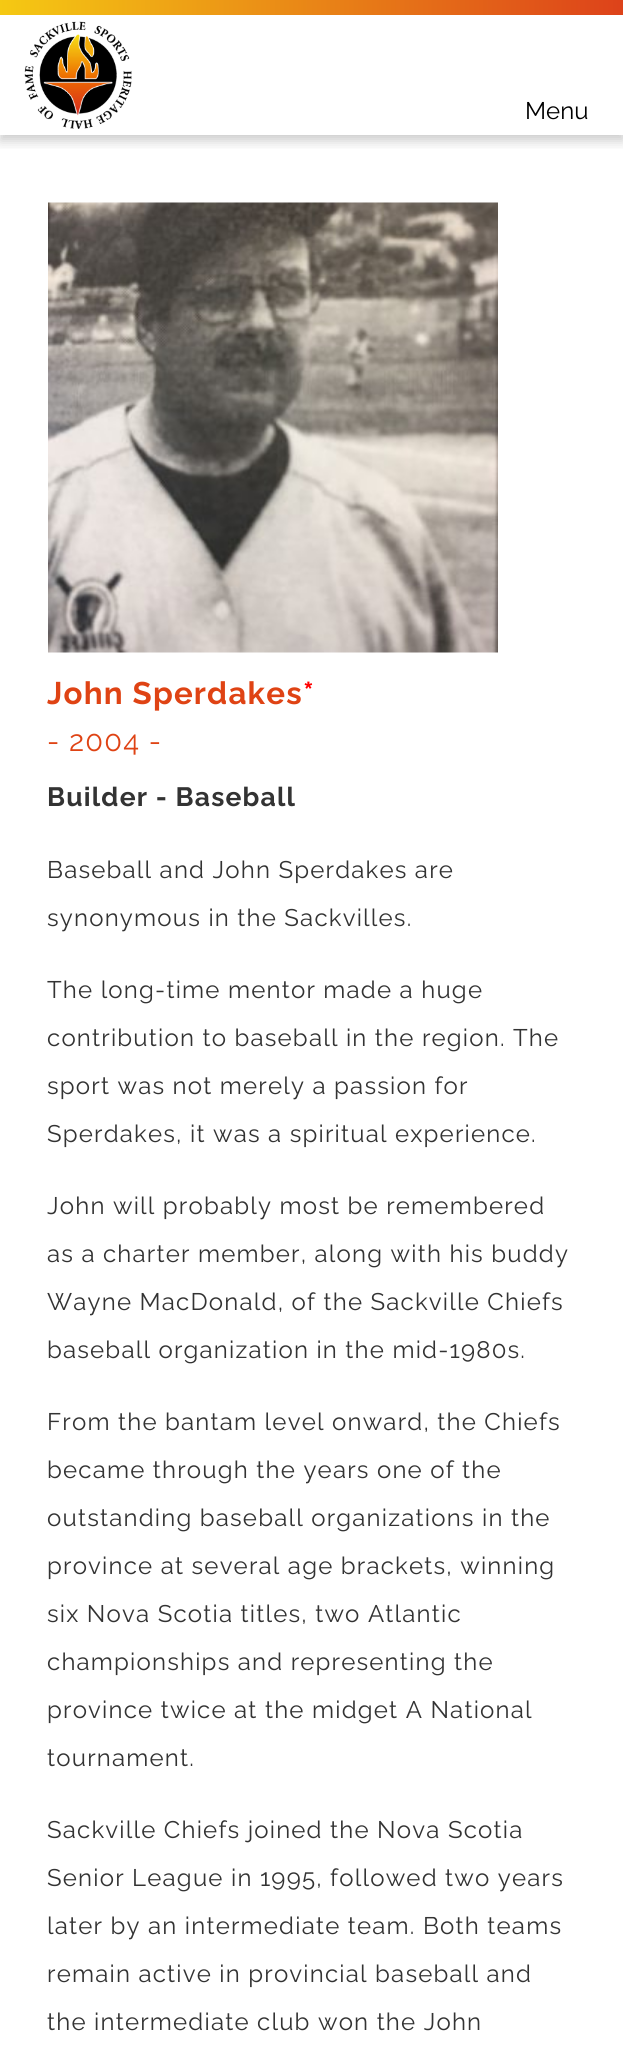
import math
import cairocffi as cairo

surface = cairo.ImageSurface(cairo.FORMAT_RGB24, 623, 2071)
cr = cairo.Context(surface)
options = cairo.FontOptions()
options.set_hint_metrics(cairo.HINT_METRICS_OFF)
options.set_hint_style(cairo.HINT_STYLE_NONE)
cr.set_font_options(options)
cr.set_miter_limit(4)


def use_color(code):
    cr.set_source_rgb(*(v / 255 for v in bytes.fromhex(code[-6:])))


def spaced_text(x, y, s, letter, word):
    cr.move_to(x, y)
    for ch in s:
        cr.show_text(ch)
        cr.rel_move_to(letter + word * (ch == ' '), 0)


def round_rect(x, y, w, h, r):
    cr.new_sub_path()
    for i, (u, v) in enumerate([(x + w - r, y + h - r), (x + r, y + h - r), (x + r, y + r), (x + w - r, y + r)]):
        cr.arc(u, v, r, i * math.pi / 2, (i + 1) * math.pi / 2)
    cr.close_path()


def shadow(x, y, w, h, r, blur, alpha):
    cr.push_group_with_content(cairo.CONTENT_ALPHA)
    cr.set_operator(cairo.OPERATOR_SOURCE)
    for i in range(15, -16, -2):
        e = blur * i / 6
        if min(w, h) + 2 * e > 0:
            cr.set_source_rgba(0, 0, 0, alpha * math.erfc((i - 1) / 8.5) / 2)
            round_rect(x - e, y - e, w + 2 * e, h + 2 * e, max(0, min(r + e + blur * .6, min(w, h) / 2 + e)))
            cr.fill()
    cr.mask(cr.pop_group())


def picture(path, x, y, w, h):
    cr.save()
    cr.set_source_surface(cairo.ImageSurface.create_from_png(path), x, y)
    cr.rectangle(x, y, w, h)
    cr.fill()
    cr.restore()


use_color("#ffffff")
cr.paint()
cr.save()
cr.rectangle(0, 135, 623, 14)
cr.clip()
use_color("#000000")
shadow(0, 6, 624, 135, 0, 6, 0.2)
cr.restore()
gradient = cairo.LinearGradient(0, 7.5, 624, 7.5)
gradient.add_color_stop_rgba(0, 0.961, 0.788, 0.075, 1)
gradient.add_color_stop_rgba(1, 0.867, 0.259, 0.102, 1)
cr.set_source(gradient)
cr.rectangle(0, 0, 623, 15)
cr.fill()
picture("img1.png", 24, 21, 108, 108)
cr.select_font_face("Raleway")
cr.set_font_size(24)
use_color("#000000")
cr.move_to(525, 119)
cr.show_text("Menu")
picture("img2.png", 48, 202, 450, 451)
cr.select_font_face("Raleway", cairo.FONT_SLANT_NORMAL, cairo.FONT_WEIGHT_BOLD)
cr.set_font_size(31.25)
use_color("#df4314")
spaced_text(47, 704, "John Sperdakes", 1.2, 0)
use_color("#ff0000")
spaced_text(303, 704, "*", 1.2, 0)
cr.select_font_face("Raleway")
cr.set_font_size(29)
use_color("#df4314")
spaced_text(47, 751, "- 2004 -", 1.2, 0)
cr.select_font_face("Raleway", cairo.FONT_SLANT_NORMAL, cairo.FONT_WEIGHT_BOLD)
cr.set_font_size(26.5)
use_color("#333333")
spaced_text(47, 806, "Builder - Baseball", 1.2, 0)
cr.select_font_face("Raleway")
cr.set_font_size(24)
spaced_text(47, 878, "Baseball and John Sperdakes are", 1.2, 0)
spaced_text(47, 926, "synonymous in the Sackvilles.", 1.2, 0)
spaced_text(47, 998, "The long-time mentor made a huge", 1.2, 0)
spaced_text(47, 1046, "contribution to baseball in the region. The", 1.2, 0)
spaced_text(47, 1094, "sport was not merely a passion for", 1.2, 0)
spaced_text(47, 1142, "Sperdakes, it was a spiritual experience.", 1.2, 0)
spaced_text(47, 1214, "John will probably most be remembered", 1.2, 0)
spaced_text(47, 1262, "as a charter member, along with his buddy", 1.2, 0)
spaced_text(47, 1310, "Wayne MacDonald, of the Sackville Chiefs", 1.2, 0)
spaced_text(47, 1358, "baseball organization in the mid-1980s.", 1.2, 0)
spaced_text(47, 1430, "From the bantam level onward, the Chiefs", 1.2, 0)
spaced_text(47, 1478, "became through the years one of the", 1.2, 0)
spaced_text(47, 1526, "outstanding baseball organizations in the", 1.2, 0)
spaced_text(47, 1574, "province at several age brackets, winning", 1.2, 0)
spaced_text(47, 1622, "six Nova Scotia titles, two Atlantic", 1.2, 0)
spaced_text(47, 1670, "championships and representing the", 1.2, 0)
spaced_text(47, 1718, "province twice at the midget A National", 1.2, 0)
spaced_text(47, 1766, "tournament.", 1.2, 0)
spaced_text(47, 1838, "Sackville Chiefs joined the Nova Scotia", 1.2, 0)
spaced_text(47, 1886, "Senior League in 1995, followed two years", 1.2, 0)
spaced_text(47, 1934, "later by an intermediate team. Both teams", 1.2, 0)
spaced_text(47, 1982, "remain active in provincial baseball and", 1.2, 0)
spaced_text(47, 2030, "the intermediate club won the John", 1.2, 0)
surface.write_to_png("result.png")
